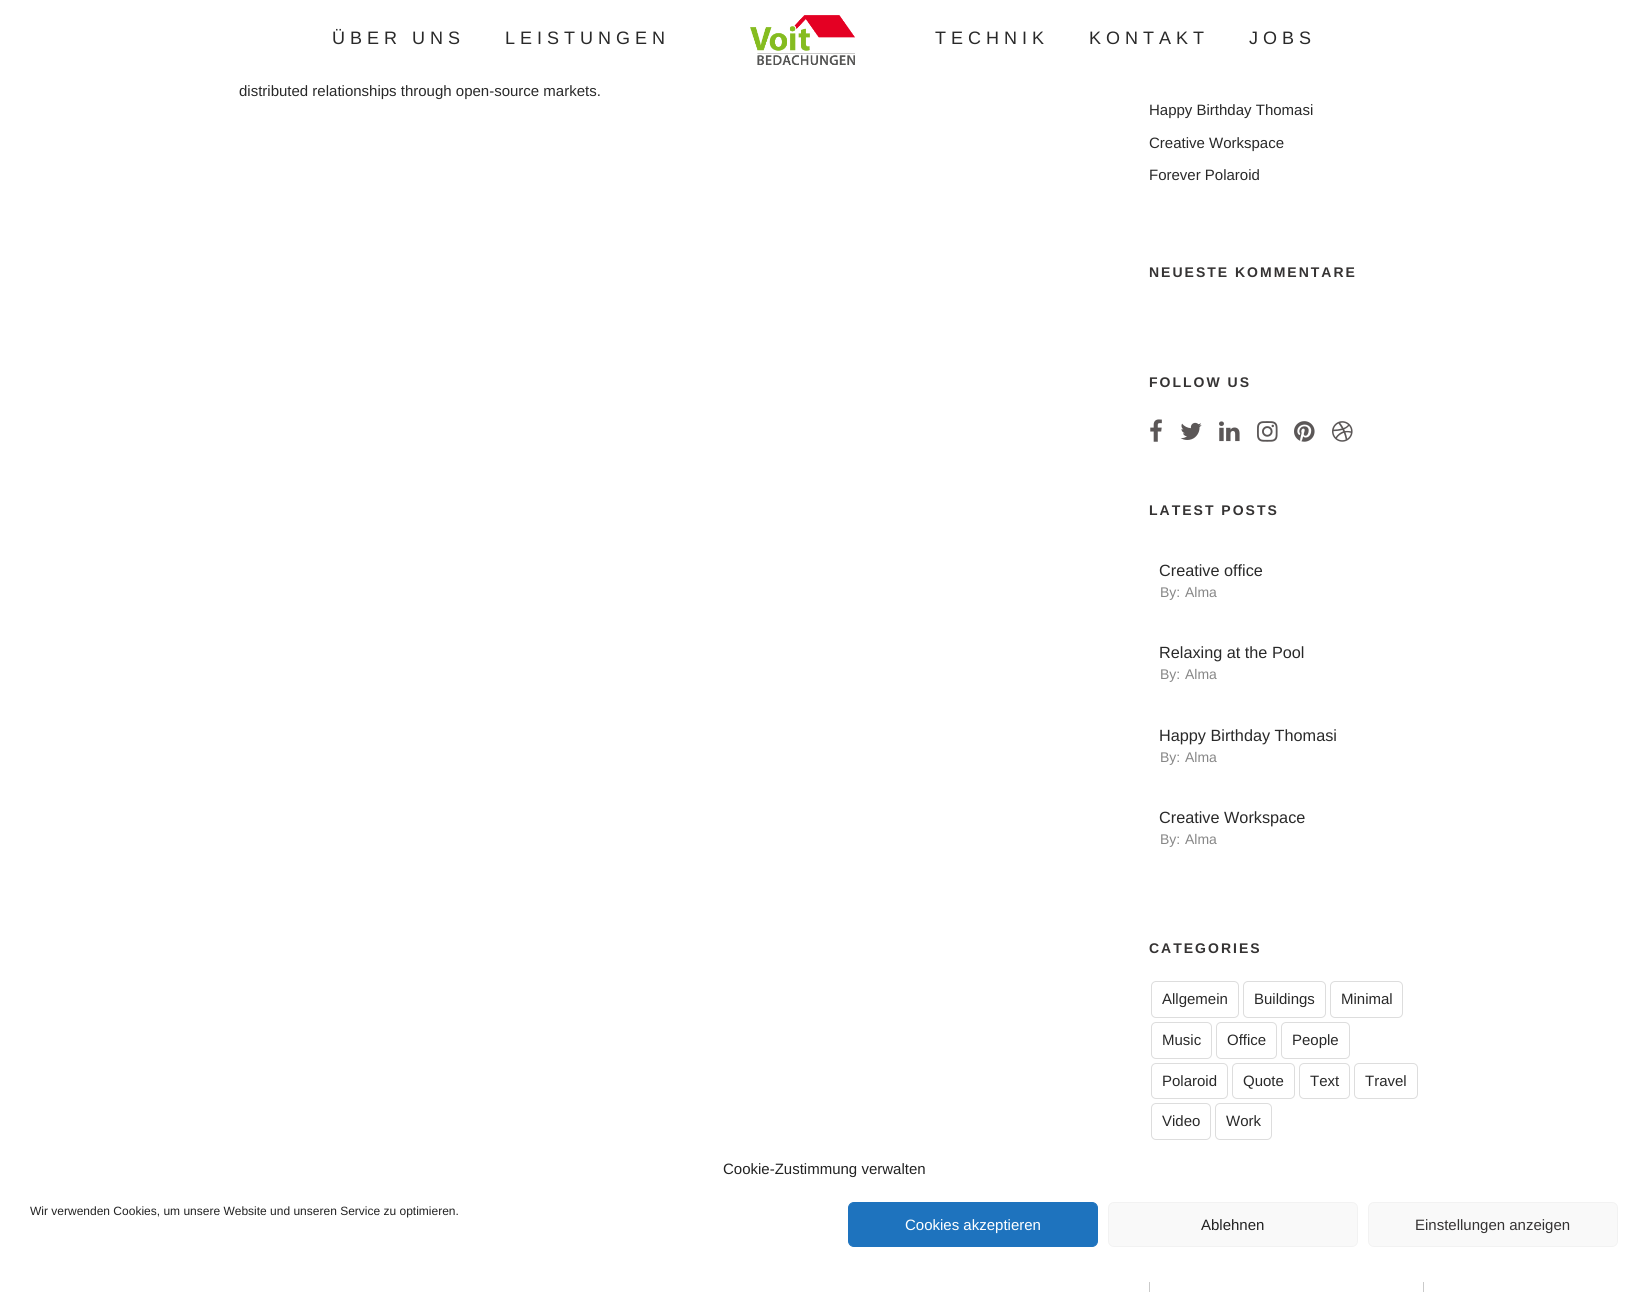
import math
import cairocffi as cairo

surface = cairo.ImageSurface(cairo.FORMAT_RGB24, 1648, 1292)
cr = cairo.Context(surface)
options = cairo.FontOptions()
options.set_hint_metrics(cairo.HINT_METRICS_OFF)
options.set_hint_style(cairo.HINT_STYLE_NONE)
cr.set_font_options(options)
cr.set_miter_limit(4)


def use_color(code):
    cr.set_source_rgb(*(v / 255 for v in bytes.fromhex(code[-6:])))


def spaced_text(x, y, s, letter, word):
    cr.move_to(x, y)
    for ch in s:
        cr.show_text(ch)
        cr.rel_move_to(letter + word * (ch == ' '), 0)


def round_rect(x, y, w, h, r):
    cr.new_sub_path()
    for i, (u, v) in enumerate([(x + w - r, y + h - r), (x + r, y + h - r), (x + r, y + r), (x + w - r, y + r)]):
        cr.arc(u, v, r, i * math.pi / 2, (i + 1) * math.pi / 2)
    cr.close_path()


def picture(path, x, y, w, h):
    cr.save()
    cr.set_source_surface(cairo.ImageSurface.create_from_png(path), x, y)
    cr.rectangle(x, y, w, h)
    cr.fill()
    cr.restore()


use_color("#ffffff")
cr.paint()
cr.select_font_face("Liberation Sans")
cr.set_font_size(18)
use_color("#292929")
spaced_text(332, 44, "ÜBER UNS", 5, 0)
spaced_text(505, 44, "LEISTUNGEN", 5, 0)
picture("img1.png", 750, 15, 105, 50)
spaced_text(935, 44, "TECHNIK", 5, 0)
spaced_text(1089, 44, "KONTAKT", 5, 0)
spaced_text(1249, 44, "JOBS", 5, 0)
cr.set_font_size(15)
cr.move_to(239, 96)
cr.show_text("distributed relationships through open-source markets.")
cr.move_to(1149, 115)
cr.show_text("Happy Birthday Thomasi")
cr.move_to(1149, 148)
cr.show_text("Creative Workspace")
cr.move_to(1149, 180)
cr.show_text("Forever Polaroid")
cr.select_font_face("Liberation Sans", cairo.FONT_SLANT_NORMAL, cairo.FONT_WEIGHT_BOLD)
cr.set_font_size(14)
use_color("#353333")
spaced_text(1149, 277, "NEUESTE KOMMENTARE", 2, 0)
spaced_text(1149, 387, "FOLLOW US", 2, 0)
picture("img2.png", 1150, 419, 12, 23)
picture("img3.png", 1180, 422, 22, 18)
picture("img4.png", 1219, 421, 21, 21)
picture("img5.png", 1257, 421, 21, 21)
picture("img6.png", 1294, 421, 21, 21)
picture("img7.png", 1332, 421, 21, 21)
spaced_text(1149, 515, "LATEST POSTS", 2, 0)
cr.select_font_face("Liberation Sans")
cr.set_font_size(16.25)
use_color("#292929")
cr.move_to(1159, 576)
cr.show_text("Creative office")
cr.set_font_size(14)
use_color("#878787")
cr.move_to(1160, 597)
cr.show_text("By:")
cr.move_to(1185, 597)
cr.show_text("Alma")
cr.set_font_size(16.25)
use_color("#292929")
cr.move_to(1159, 658)
cr.show_text("Relaxing at the Pool")
cr.set_font_size(14)
use_color("#878787")
cr.move_to(1160, 679)
cr.show_text("By:")
cr.move_to(1185, 679)
cr.show_text("Alma")
cr.set_font_size(16.25)
use_color("#292929")
cr.move_to(1159, 741)
cr.show_text("Happy Birthday Thomasi")
cr.set_font_size(14)
use_color("#878787")
cr.move_to(1160, 762)
cr.show_text("By:")
cr.move_to(1185, 762)
cr.show_text("Alma")
cr.set_font_size(16.25)
use_color("#292929")
cr.move_to(1159, 823)
cr.show_text("Creative Workspace")
cr.set_font_size(14)
use_color("#878787")
cr.move_to(1160, 844)
cr.show_text("By:")
cr.move_to(1185, 844)
cr.show_text("Alma")
cr.select_font_face("Liberation Sans", cairo.FONT_SLANT_NORMAL, cairo.FONT_WEIGHT_BOLD)
use_color("#353333")
spaced_text(1149, 953, "CATEGORIES", 2, 0)
round_rect(1151.5, 981.5, 87, 36, 4.5)
use_color("#dddddd")
cr.set_line_width(1)
cr.stroke()
cr.select_font_face("Liberation Sans")
cr.set_font_size(15)
use_color("#292929")
cr.move_to(1162, 1004)
cr.show_text("Allgemein")
round_rect(1243.5, 981.5, 82, 36, 4.5)
use_color("#dddddd")
cr.stroke()
use_color("#292929")
cr.move_to(1254, 1004)
cr.show_text("Buildings")
round_rect(1330.5, 981.5, 72, 36, 4.5)
use_color("#dddddd")
cr.stroke()
use_color("#292929")
cr.move_to(1341, 1004)
cr.show_text("Minimal")
round_rect(1151.5, 1022.5, 60, 36, 4.5)
use_color("#dddddd")
cr.stroke()
use_color("#292929")
cr.move_to(1162, 1045)
cr.show_text("Music")
round_rect(1216.5, 1022.5, 60, 36, 4.5)
use_color("#dddddd")
cr.stroke()
use_color("#292929")
cr.move_to(1227, 1045)
cr.show_text("Office")
round_rect(1281.5, 1022.5, 68, 36, 4.5)
use_color("#dddddd")
cr.stroke()
use_color("#292929")
cr.move_to(1292, 1045)
cr.show_text("People")
round_rect(1151.5, 1063.5, 76, 35, 4.5)
use_color("#dddddd")
cr.stroke()
use_color("#292929")
cr.move_to(1162, 1086)
cr.show_text("Polaroid")
round_rect(1232.5, 1063.5, 62, 35, 4.5)
use_color("#dddddd")
cr.stroke()
use_color("#292929")
cr.move_to(1243, 1086)
cr.show_text("Quote")
round_rect(1299.5, 1063.5, 50, 35, 4.5)
use_color("#dddddd")
cr.stroke()
use_color("#292929")
cr.move_to(1310, 1086)
cr.show_text("Text")
round_rect(1354.5, 1063.5, 63, 35, 4.5)
use_color("#dddddd")
cr.stroke()
use_color("#292929")
cr.move_to(1365, 1086)
cr.show_text("Travel")
round_rect(1151.5, 1103.5, 59, 36, 4.5)
use_color("#dddddd")
cr.stroke()
use_color("#292929")
cr.move_to(1162, 1126)
cr.show_text("Video")
round_rect(1215.5, 1103.5, 56, 36, 4.5)
use_color("#dddddd")
cr.stroke()
use_color("#292929")
cr.move_to(1226, 1126)
cr.show_text("Work")
cr.rectangle(1149.5, 1268.5, 274, 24)
use_color("#cacaca")
cr.stroke()
use_color("#ffffff")
round_rect(10, 1141, 1628, 141, 12)
cr.fill()
use_color("#222222")
cr.move_to(723, 1174)
cr.show_text("Cookie-Zustimmung verwalten")
cr.set_font_size(12)
cr.move_to(30, 1215)
cr.show_text("Wir verwenden Cookies, um unsere Website und unseren Service zu optimieren.")
use_color("#1e73be")
round_rect(848.5, 1202.5, 249, 44, 5.5)
cr.fill_preserve()
cr.stroke()
cr.set_font_size(15)
use_color("#ffffff")
cr.move_to(905, 1230)
cr.show_text("Cookies akzeptieren")
use_color("#f9f9f9")
round_rect(1108.5, 1202.5, 249, 44, 5.5)
cr.fill_preserve()
use_color("#f2f2f2")
cr.stroke()
use_color("#222222")
cr.move_to(1201, 1230)
cr.show_text("Ablehnen")
use_color("#f9f9f9")
round_rect(1368.5, 1202.5, 249, 44, 5.5)
cr.fill_preserve()
use_color("#f2f2f2")
cr.stroke()
use_color("#353333")
cr.move_to(1415, 1230)
cr.show_text("Einstellungen anzeigen")
surface.write_to_png("result.png")
